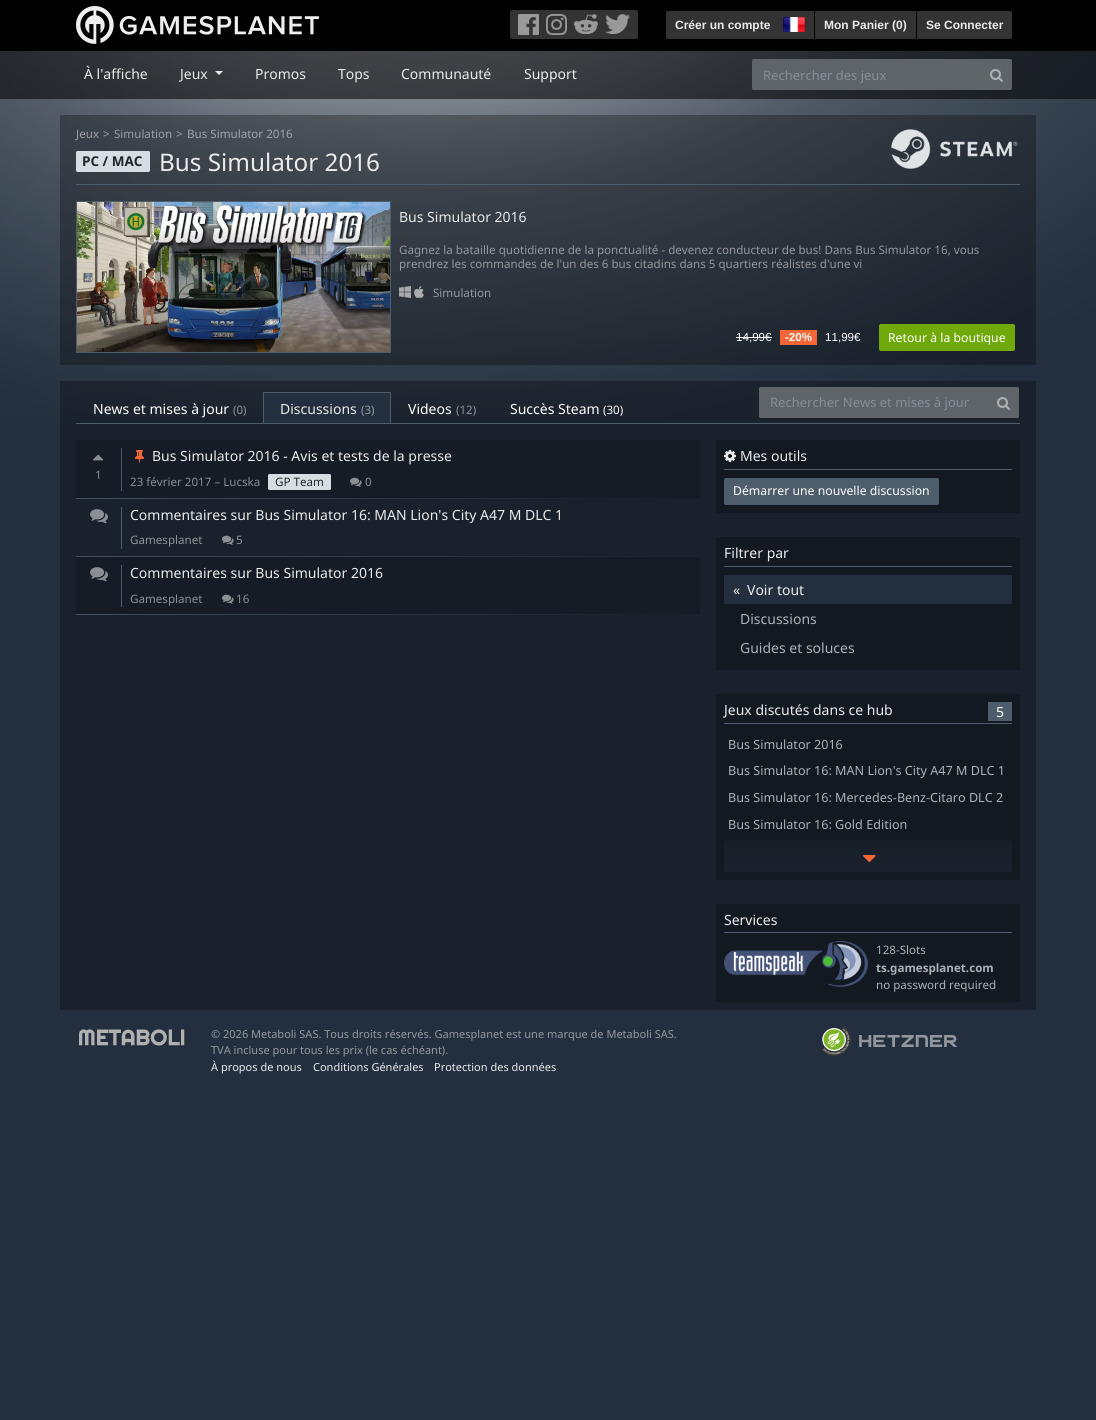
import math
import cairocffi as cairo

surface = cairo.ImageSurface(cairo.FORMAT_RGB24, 1096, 1420)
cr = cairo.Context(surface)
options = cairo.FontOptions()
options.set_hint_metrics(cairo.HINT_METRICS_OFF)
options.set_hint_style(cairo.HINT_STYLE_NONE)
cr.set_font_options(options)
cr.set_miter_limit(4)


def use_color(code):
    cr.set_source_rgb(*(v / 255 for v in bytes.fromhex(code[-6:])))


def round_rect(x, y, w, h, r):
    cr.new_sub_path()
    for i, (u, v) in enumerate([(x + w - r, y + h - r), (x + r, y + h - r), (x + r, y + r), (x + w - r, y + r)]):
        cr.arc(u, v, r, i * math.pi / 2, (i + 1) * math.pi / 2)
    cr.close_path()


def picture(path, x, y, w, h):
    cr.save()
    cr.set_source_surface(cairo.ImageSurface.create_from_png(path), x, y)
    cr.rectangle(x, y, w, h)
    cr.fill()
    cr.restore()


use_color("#232f3e")
cr.paint()
picture("img1.png", 0, 51, 1096, 366)
use_color("#000000")
cr.rectangle(0, 0, 1096, 51)
cr.fill()
picture("img2.png", 76, 6, 243, 38)
use_color("#333333")
cr.new_path()
cr.move_to(512, 10)
cr.line_to(543, 10)
cr.line_to(543, 39)
cr.line_to(512, 39)
cr.curve_to(511, 39, 510, 38, 510, 37)
cr.line_to(510, 12)
cr.curve_to(510, 11, 511, 10, 512, 10)
cr.close_path()
cr.fill()
picture("img3.png", 518, 14, 21, 21)
cr.rectangle(543, 10, 58, 29)
cr.fill()
picture("img4.png", 546, 14, 21, 21)
cr.new_path()
cr.move_to(601, 10)
cr.line_to(636, 10)
cr.curve_to(637, 10, 638, 11, 638, 12)
cr.line_to(638, 37)
cr.curve_to(638, 38, 637, 39, 636, 39)
cr.line_to(601, 39)
cr.close_path()
cr.fill()
picture("img5.png", 605, 14, 25, 20)
picture("img6.png", 574, 14, 24, 20)
cr.new_path()
cr.move_to(668, 11)
cr.line_to(779, 11)
cr.line_to(779, 39)
cr.line_to(668, 39)
cr.curve_to(667, 39, 666, 38, 666, 37)
cr.line_to(666, 13)
cr.curve_to(666, 12, 667, 11, 668, 11)
cr.close_path()
cr.fill()
cr.select_font_face("Liberation Sans", cairo.FONT_SLANT_NORMAL, cairo.FONT_WEIGHT_BOLD)
cr.set_font_size(12)
use_color("#ebebeb")
cr.move_to(675, 29)
cr.show_text("Créer un compte")
use_color("#333333")
cr.rectangle(779, 11, 35, 28)
cr.fill()
picture("img7.png", 783, 17, 22, 15)
cr.rectangle(815, 11, 101, 28)
cr.fill()
use_color("#ebebeb")
cr.move_to(824, 29)
cr.show_text("Mon Panier (0)")
use_color("#333333")
cr.new_path()
cr.move_to(917, 11)
cr.line_to(1010, 11)
cr.curve_to(1011, 11, 1012, 12, 1012, 13)
cr.line_to(1012, 37)
cr.curve_to(1012, 38, 1011, 39, 1010, 39)
cr.line_to(917, 39)
cr.close_path()
cr.fill()
use_color("#ebebeb")
cr.move_to(926, 29)
cr.show_text("Se Connecter")
cr.set_source_rgba(0, 0, 0, 0.55)
cr.rectangle(0, 51, 1096, 48)
cr.fill()
cr.select_font_face("Noto Sans")
cr.set_font_size(14)
use_color("#ebebeb")
cr.move_to(84, 79)
cr.show_text("À l'affiche")
cr.move_to(180, 79)
cr.show_text("Jeux")
cr.new_path()
cr.move_to(215, 71)
cr.line_to(223, 71)
cr.line_to(219, 75)
cr.close_path()
cr.fill()
cr.move_to(255, 79)
cr.show_text("Promos")
cr.move_to(338, 79)
cr.show_text("Tops")
cr.move_to(401, 79)
cr.show_text("Communauté")
cr.move_to(524, 79)
cr.show_text("Support")
use_color("#5f6468")
cr.new_path()
cr.move_to(754, 59.5)
cr.line_to(981.5, 59.5)
cr.line_to(981.5, 89.5)
cr.line_to(754, 89.5)
cr.curve_to(753, 89.5, 752.5, 89, 752.5, 88)
cr.line_to(752.5, 61)
cr.curve_to(752.5, 60, 753, 59.5, 754, 59.5)
cr.close_path()
cr.fill_preserve()
cr.set_line_width(1)
cr.stroke()
cr.set_font_size(13)
use_color("#868e96")
cr.move_to(763, 80)
cr.show_text("Rechercher des jeux")
use_color("#5f6468")
cr.new_path()
cr.move_to(981.5, 59.5)
cr.line_to(1010, 59.5)
cr.curve_to(1011, 59.5, 1011.5, 60, 1011.5, 61)
cr.line_to(1011.5, 88)
cr.curve_to(1011.5, 89, 1011, 89.5, 1010, 89.5)
cr.line_to(981.5, 89.5)
cr.close_path()
cr.fill_preserve()
cr.stroke()
picture("img8.png", 990, 69, 13, 13)
cr.set_source_rgba(0, 0, 0, 0.3)
cr.rectangle(60, 115, 976, 250)
cr.fill()
cr.set_font_size(11.6)
use_color("#9c9fa3")
cr.move_to(76, 138)
cr.show_text("Jeux")
cr.move_to(103, 138)
cr.show_text(">")
cr.move_to(114, 138)
cr.show_text("Simulation")
cr.move_to(176, 138)
cr.show_text(">")
use_color("#a2a5a9")
cr.move_to(187, 138)
cr.show_text("Bus Simulator 2016")
use_color("#d7dde2")
round_rect(76, 151, 74, 21, 1.5)
cr.fill()
cr.select_font_face("Noto Sans", cairo.FONT_SLANT_NORMAL, cairo.FONT_WEIGHT_BOLD)
cr.set_font_size(13.5)
use_color("#212529")
cr.move_to(82, 166)
cr.show_text("PC / MAC")
use_color("#4e5d6c")
cr.rectangle(76, 184, 944, 1)
cr.fill()
cr.select_font_face("Noto Sans")
cr.set_font_size(24.25)
use_color("#ebebeb")
cr.move_to(159, 171)
cr.show_text("Bus Simulator 2016")
picture("img9.png", 891, 129, 127, 40)
cr.rectangle(76.5, 201.5, 314, 151)
use_color("#4e5d6c")
cr.stroke()
picture("img10.png", 77, 202, 313, 150)
cr.set_font_size(14)
use_color("#ebebeb")
cr.move_to(399, 222)
cr.show_text("Bus Simulator 2016")
cr.set_font_size(11.6)
use_color("#95999d")
cr.move_to(399, 254)
cr.show_text("Gagnez la bataille quotidienne de la ponctualité - devenez conducteur de bus! Dans Bus Simulator 16, vous")
cr.move_to(399, 268)
cr.show_text("prendrez les commandes de l'un des 6 bus citadins dans 5 quartiers réalistes d'une vi")
picture("img11.png", 399, 286, 12, 12)
picture("img12.png", 414, 286, 10, 12)
cr.move_to(433, 297)
cr.show_text("Simulation")
cr.select_font_face("Liberation Sans")
use_color("#ffffff")
cr.move_to(736, 341)
cr.show_text("14,99€")
cr.rectangle(736, 337, 36, 1)
cr.fill()
use_color("#f26638")
cr.rectangle(780, 330, 37, 15)
cr.fill()
cr.select_font_face("Liberation Sans", cairo.FONT_SLANT_NORMAL, cairo.FONT_WEIGHT_BOLD)
use_color("#ffffff")
cr.move_to(785, 341)
cr.show_text("-20%")
cr.select_font_face("Liberation Sans")
cr.move_to(825, 341)
cr.show_text("11,99€")
use_color("#6faa0a")
round_rect(879.5, 324.5, 135, 26, 1.5)
cr.fill_preserve()
cr.stroke()
cr.select_font_face("Noto Sans")
cr.set_font_size(12.25)
use_color("#ffffff")
cr.move_to(888, 342)
cr.show_text("Retour à la boutique")
cr.set_source_rgba(0, 0, 0, 0.3)
cr.rectangle(60, 381, 976, 629)
cr.fill()
use_color("#4e5d6c")
cr.rectangle(76, 423, 944, 1)
cr.fill()
cr.set_font_size(14)
use_color("#ffffff")
cr.move_to(93, 414)
cr.show_text("News et mises à jour")
cr.set_font_size(11.6)
use_color("#8e9297")
cr.move_to(233, 414)
cr.show_text("(0)")
use_color("#232f3e")
cr.rectangle(264, 393, 126, 30)
cr.fill()
cr.save()
cr.rectangle(76, 392, 944, 31)
cr.clip()
cr.rectangle(263.5, 392.5, 127, 31)
use_color("#4e5d6c")
cr.stroke()
cr.restore()
cr.set_font_size(14)
use_color("#ebebeb")
cr.move_to(280, 414)
cr.show_text("Discussions")
cr.set_font_size(11.6)
use_color("#95999d")
cr.move_to(361, 414)
cr.show_text("(3)")
cr.set_font_size(14)
use_color("#ffffff")
cr.move_to(408, 414)
cr.show_text("Videos")
cr.set_font_size(11.6)
use_color("#8e9297")
cr.move_to(456, 414)
cr.show_text("(12)")
cr.set_font_size(14)
use_color("#ffffff")
cr.move_to(510, 414)
cr.show_text("Succès Steam")
cr.set_font_size(11.6)
cr.move_to(603, 414)
cr.show_text("(30)")
use_color("#5f6468")
cr.new_path()
cr.move_to(761, 387.5)
cr.line_to(988.5, 387.5)
cr.line_to(988.5, 417.5)
cr.line_to(761, 417.5)
cr.curve_to(760, 417.5, 759.5, 417, 759.5, 416)
cr.line_to(759.5, 389)
cr.curve_to(759.5, 388, 760, 387.5, 761, 387.5)
cr.close_path()
cr.fill_preserve()
cr.stroke()
cr.set_font_size(13)
use_color("#868e96")
cr.move_to(770, 407)
cr.show_text("Rechercher News et mises à jour")
use_color("#5f6468")
cr.new_path()
cr.move_to(988.5, 387.5)
cr.line_to(1017, 387.5)
cr.curve_to(1018, 387.5, 1018.5, 388, 1018.5, 389)
cr.line_to(1018.5, 416)
cr.curve_to(1018.5, 417, 1018, 417.5, 1017, 417.5)
cr.line_to(988.5, 417.5)
cr.close_path()
cr.fill_preserve()
cr.stroke()
picture("img8.png", 997, 397, 13, 13)
use_color("#151c25")
cr.rectangle(76, 440, 624, 58)
cr.fill()
picture("img13.png", 93, 454, 11, 7)
cr.set_font_size(11.6)
use_color("#868e96")
cr.move_to(95, 479)
cr.show_text("1")
use_color("#4e5d6c")
cr.rectangle(121, 448, 1, 43)
cr.fill()
picture("img14.png", 135, 450, 9, 13)
cr.set_font_size(14)
use_color("#ebebeb")
cr.move_to(152, 461)
cr.show_text("Bus Simulator 2016 - Avis et tests de la presse")
cr.set_font_size(11.6)
use_color("#868e96")
cr.move_to(130, 486)
cr.show_text("23 février 2017 – Lucska")
use_color("#d7dde2")
round_rect(268, 474, 63, 16, 1.5)
cr.fill()
use_color("#212529")
cr.move_to(275, 486)
cr.show_text("GP Team")
picture("img15.png", 350, 477, 12, 10)
use_color("#868e96")
cr.move_to(365, 486)
cr.show_text("0")
gradient = cairo.LinearGradient(76, 499, 700, 499)
gradient.add_color_stop_rgba(0, 0.263, 0.314, 0.369, 1)
gradient.add_color_stop_rgba(1, 0.082, 0.11, 0.145, 1)
cr.set_source(gradient)
cr.rectangle(76, 498, 624, 1)
cr.fill()
picture("img16.png", 90, 509, 18, 15)
use_color("#4e5d6c")
cr.rectangle(121, 507, 1, 42)
cr.fill()
cr.save()
cr.rectangle(130, 507, 562, 16)
cr.clip()
cr.set_font_size(14)
use_color("#ebebeb")
cr.move_to(130, 520)
cr.show_text("Commentaires sur Bus Simulator 16: MAN Lion's City A47 M DLC 1")
cr.restore()
use_color("#8e9297")
cr.move_to(130, 544)
cr.show_text("Gamesplanet")
picture("img17.png", 222, 535, 12, 10)
cr.move_to(236, 544)
cr.show_text("5")
gradient = cairo.LinearGradient(76, 557, 700, 557)
gradient.add_color_stop_rgba(0, 0.263, 0.318, 0.373, 1)
gradient.add_color_stop_rgba(1, 0.098, 0.129, 0.169, 1)
cr.set_source(gradient)
cr.rectangle(76, 556, 592, 1)
cr.fill()
use_color("#151c25")
cr.rectangle(76, 557, 624, 57)
cr.fill()
picture("img18.png", 90, 567, 18, 15)
use_color("#4e5d6c")
cr.rectangle(121, 565, 1, 42)
cr.fill()
cr.set_font_size(14)
use_color("#ebebeb")
cr.move_to(130, 578)
cr.show_text("Commentaires sur Bus Simulator 2016")
cr.set_font_size(11.6)
use_color("#868e96")
cr.move_to(130, 603)
cr.show_text("Gamesplanet")
picture("img15.png", 222, 594, 12, 10)
cr.move_to(236, 603)
cr.show_text("16")
gradient = cairo.LinearGradient(76, 615, 700, 615)
gradient.add_color_stop_rgba(0, 0.263, 0.314, 0.369, 1)
gradient.add_color_stop_rgba(1, 0.082, 0.11, 0.145, 1)
cr.set_source(gradient)
cr.rectangle(76, 614, 624, 1)
cr.fill()
use_color("#121921")
cr.rectangle(716, 440, 304, 73)
cr.fill()
use_color("#4e5d6c")
cr.rectangle(724, 469, 288, 1)
cr.fill()
picture("img19.png", 724, 450, 12, 12)
cr.set_font_size(14)
use_color("#ebebeb")
cr.move_to(740, 461)
cr.show_text("Mes outils")
use_color("#4e5d6c")
round_rect(724.5, 478.5, 214, 26, 1.5)
cr.fill_preserve()
cr.stroke()
cr.set_font_size(12.25)
use_color("#ffffff")
cr.move_to(733, 495)
cr.show_text("Démarrer une nouvelle discussion")
use_color("#121921")
cr.rectangle(716, 537, 304, 133)
cr.fill()
use_color("#4e5d6c")
cr.rectangle(724, 566, 288, 1)
cr.fill()
cr.set_font_size(14)
use_color("#ebebeb")
cr.move_to(724, 558)
cr.show_text("Filtrer par")
use_color("#232f3e")
cr.rectangle(724, 575, 288, 29)
cr.fill()
use_color("#ebebeb")
cr.move_to(733, 595)
cr.show_text("«")
cr.move_to(747, 595)
cr.show_text("Voir tout")
use_color("#acb2b8")
cr.move_to(740, 624)
cr.show_text("Discussions")
cr.move_to(740, 653)
cr.show_text("Guides et soluces")
use_color("#121921")
cr.rectangle(716, 694, 304, 186)
cr.fill()
use_color("#4e5d6c")
cr.rectangle(724, 723, 288, 1)
cr.fill()
use_color("#ebebeb")
cr.move_to(724, 715)
cr.show_text("Jeux discutés dans ce hub")
use_color("#4e5d6c")
cr.rectangle(988, 702, 24, 19)
cr.fill()
use_color("#ffffff")
cr.move_to(996, 717)
cr.show_text("5")
cr.set_font_size(12.6)
use_color("#acb2b8")
cr.move_to(728, 749)
cr.show_text("Bus Simulator 2016")
cr.move_to(728, 775)
cr.show_text("Bus Simulator 16: MAN Lion's City A47 M DLC 1")
cr.move_to(728, 802)
cr.show_text("Bus Simulator 16: Mercedes-Benz-Citaro DLC 2")
cr.move_to(728, 829)
cr.show_text("Bus Simulator 16: Gold Edition")
gradient = cairo.LinearGradient(868, 837, 868, 872)
gradient.add_color_stop_rgba(0, 0.098, 0.129, 0.173, 0)
gradient.add_color_stop_rgba(0.01, 0.098, 0.129, 0.173, 0)
gradient.add_color_stop_rgba(0.2, 0.098, 0.129, 0.173, 0.65)
gradient.add_color_stop_rgba(0.75, 0.098, 0.129, 0.173, 1)
cr.set_source(gradient)
cr.rectangle(724, 840, 288, 32)
cr.fill()
picture("img20.png", 863, 855, 13, 7)
use_color("#121921")
cr.rectangle(716, 904, 304, 98)
cr.fill()
use_color("#4e5d6c")
cr.rectangle(724, 932, 288, 1)
cr.fill()
cr.set_font_size(14)
use_color("#ebebeb")
cr.move_to(724, 925)
cr.show_text("Services")
picture("img21.png", 724, 941, 144, 46)
cr.set_font_size(11.6)
use_color("#acb2b8")
cr.move_to(876, 954)
cr.show_text("128-Slots")
cr.select_font_face("Noto Sans", cairo.FONT_SLANT_NORMAL, cairo.FONT_WEIGHT_BOLD)
cr.move_to(876, 972)
cr.show_text("ts.gamesplanet.com")
cr.select_font_face("Noto Sans")
cr.move_to(876, 989)
cr.show_text("no password required")
picture("img22.png", 79, 1029, 106, 17)
cr.set_font_size(11)
use_color("#95999d")
cr.move_to(211, 1038)
cr.show_text("© 2026 Metaboli SAS. Tous droits réservés. Gamesplanet est une marque de Metaboli SAS.")
cr.move_to(211, 1054)
cr.show_text("TVA incluse pour tous les prix (le cas échéant).")
use_color("#ebebeb")
cr.move_to(211, 1071)
cr.show_text("À propos de nous")
cr.move_to(313, 1071)
cr.show_text("Conditions Générales")
cr.move_to(434, 1071)
cr.show_text("Protection des données")
picture("img23.png", 821, 1026, 30, 30)
picture("img24.png", 859, 1035, 98, 12)
surface.write_to_png("result.png")
